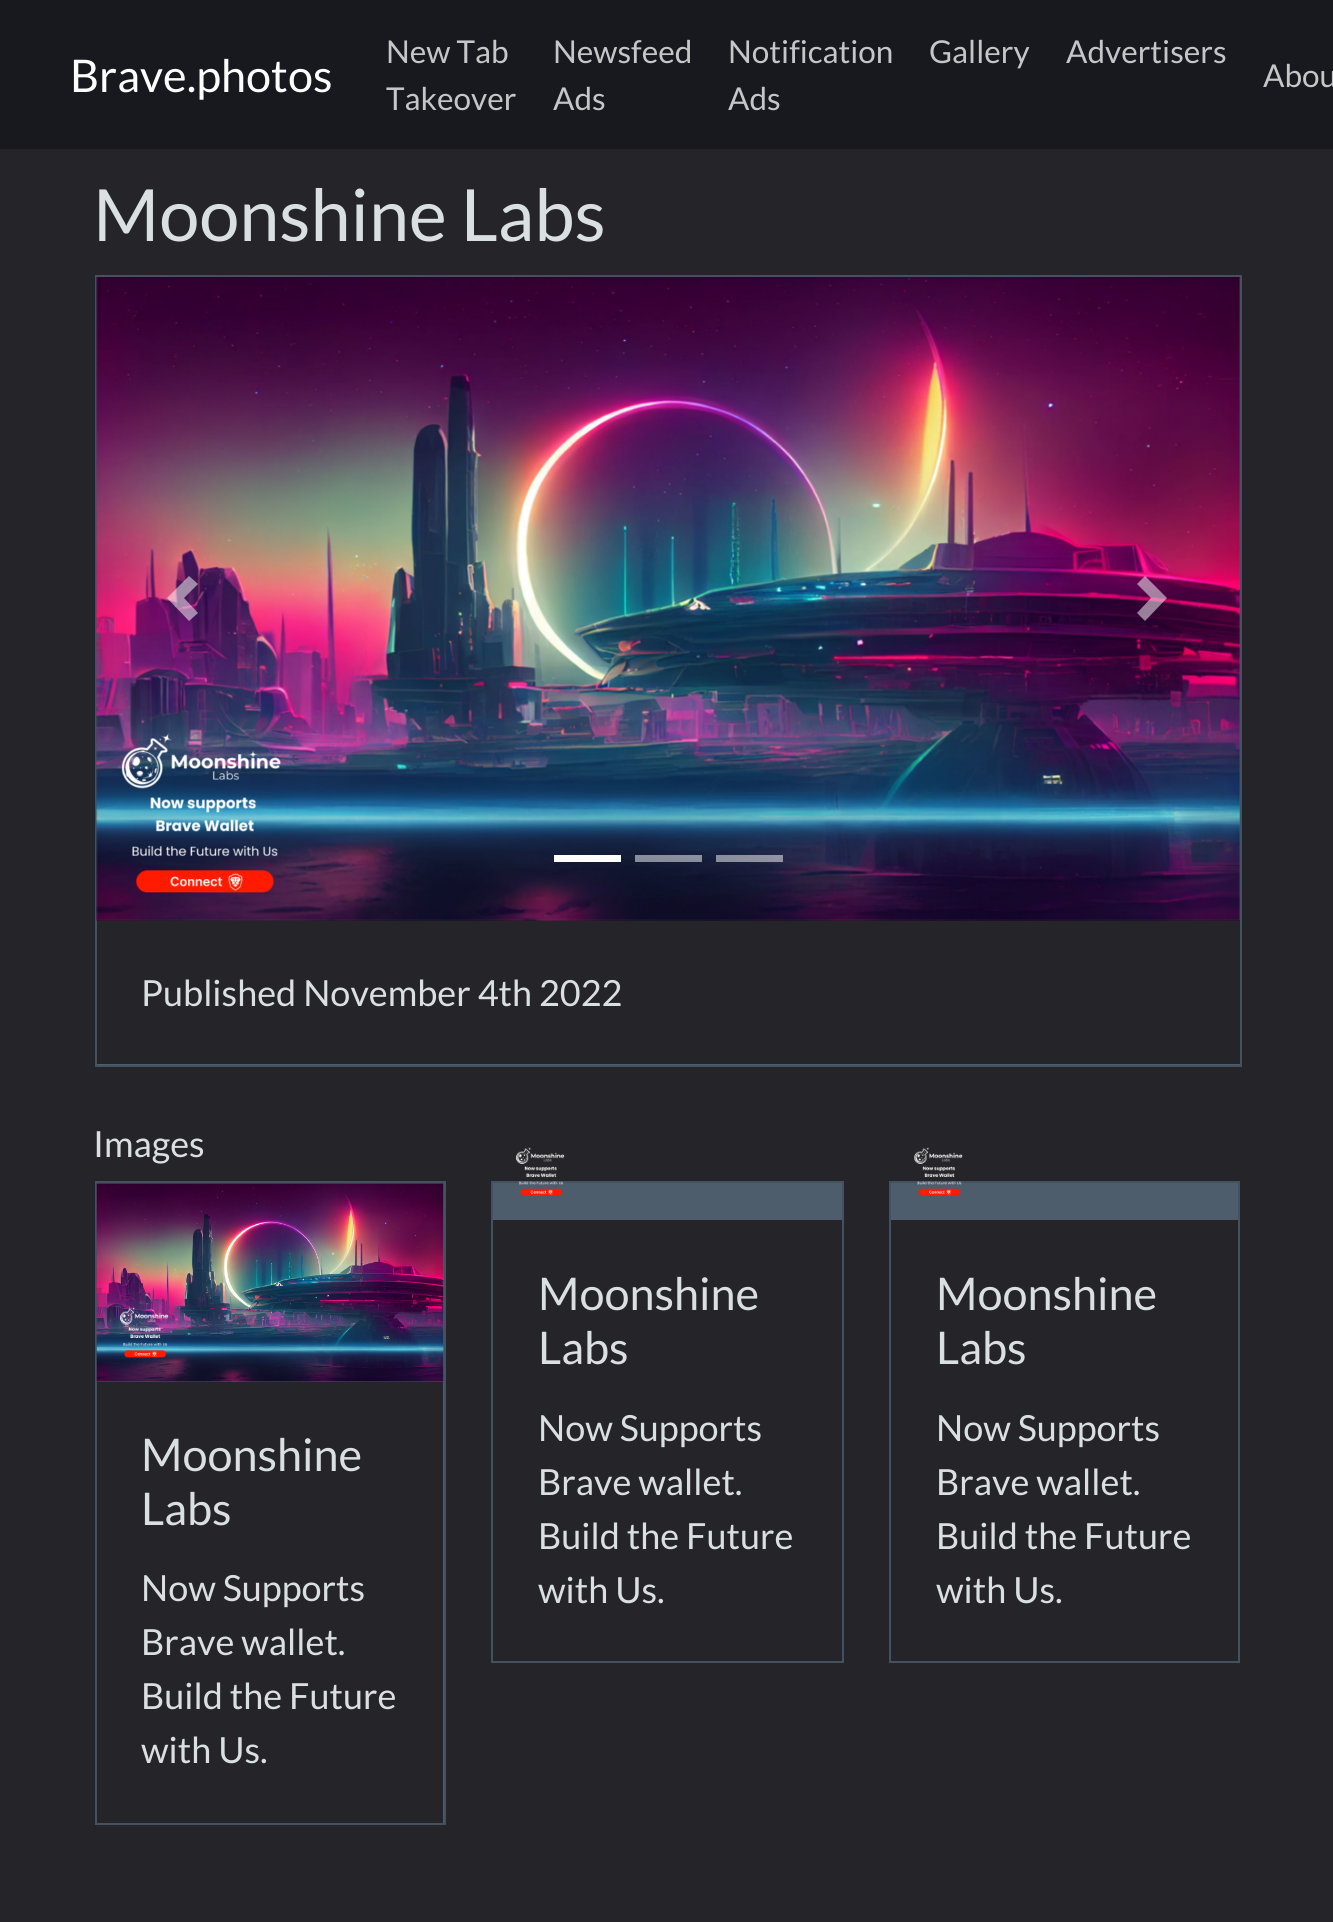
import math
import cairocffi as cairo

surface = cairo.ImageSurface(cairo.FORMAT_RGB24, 1333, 1922)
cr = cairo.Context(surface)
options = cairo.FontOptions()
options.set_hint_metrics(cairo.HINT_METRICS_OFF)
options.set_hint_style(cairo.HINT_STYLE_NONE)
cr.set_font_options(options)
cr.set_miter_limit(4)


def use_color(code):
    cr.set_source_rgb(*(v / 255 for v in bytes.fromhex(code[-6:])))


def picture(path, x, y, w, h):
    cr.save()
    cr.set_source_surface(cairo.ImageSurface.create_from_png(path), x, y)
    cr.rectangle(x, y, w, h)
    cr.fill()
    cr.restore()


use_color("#252529")
cr.paint()
use_color("#17191e")
cr.rectangle(0, 0, 1333, 149)
cr.fill()
cr.select_font_face("Lato")
cr.set_font_size(45)
use_color("#ffffff")
cr.move_to(70, 92)
cr.show_text("Brave.photos")
cr.set_font_size(31.5)
use_color("#c5c6c7")
cr.move_to(386, 63)
cr.show_text("New Tab")
cr.move_to(386, 110)
cr.show_text("Takeover")
cr.move_to(553, 63)
cr.show_text("Newsfeed")
cr.move_to(553, 110)
cr.show_text("Ads")
cr.move_to(728, 63)
cr.show_text("Notification")
cr.move_to(728, 110)
cr.show_text("Ads")
cr.move_to(929, 63)
cr.show_text("Gallery")
cr.move_to(1066, 63)
cr.show_text("Advertisers")
cr.move_to(1263, 87)
cr.show_text("Abou")
cr.set_font_size(72)
use_color("#dadfe1")
cr.move_to(93, 241)
cr.show_text("Moonshine Labs")
use_color("#4e5d6c")
cr.rectangle(96, 276, 1145, 790)
cr.fill_preserve()
use_color("#44515f")
cr.stroke()
use_color("#252529")
cr.rectangle(97, 920, 1143, 144)
cr.fill()
picture("img1.png", 96, 277, 1144, 644)
picture("img2.png", 121, 733, 160, 160)
cr.set_source_rgba(1, 1, 1, 0.5)
cr.new_path()
cr.move_to(189, 576)
cr.line_to(167, 598)
cr.line_to(189, 621)
cr.line_to(198, 613)
cr.line_to(184, 598)
cr.line_to(198, 584)
cr.close_path()
cr.fill()
cr.new_path()
cr.move_to(1145, 576)
cr.line_to(1137, 584)
cr.line_to(1151, 598)
cr.line_to(1137, 613)
cr.line_to(1145, 621)
cr.line_to(1167, 598)
cr.close_path()
cr.fill()
use_color("#ffffff")
cr.rectangle(554, 855, 67, 7)
cr.fill()
cr.set_source_rgba(1, 1, 1, 0.5)
cr.rectangle(635, 855, 67, 7)
cr.fill()
cr.rectangle(716, 855, 67, 7)
cr.fill()
cr.set_font_size(36)
use_color("#dadfe1")
cr.move_to(141, 1006)
cr.show_text("Published November 4th 2022")
cr.move_to(93, 1157)
cr.show_text("Images")
use_color("#4e5d6c")
cr.rectangle(96, 1182, 349, 642)
cr.fill_preserve()
use_color("#44515f")
cr.stroke()
picture("img3.png", 96, 1183, 348, 199)
picture("img4.png", 120, 1307, 49, 51)
use_color("#252529")
cr.rectangle(97, 1382, 346, 441)
cr.fill()
cr.set_font_size(45)
use_color("#dadfe1")
cr.move_to(141, 1471)
cr.show_text("Moonshine")
cr.move_to(141, 1525)
cr.show_text("Labs")
cr.set_font_size(36)
cr.move_to(141, 1601)
cr.show_text("Now Supports")
cr.move_to(141, 1655)
cr.show_text("Brave wallet.")
cr.move_to(141, 1709)
cr.show_text("Build the Future")
cr.move_to(141, 1763)
cr.show_text("with Us.")
use_color("#4e5d6c")
cr.rectangle(493, 1183, 349, 37)
cr.fill()
cr.rectangle(492, 1182, 351, 480)
use_color("#44515f")
cr.stroke()
picture("img5.png", 516, 1147, 49, 49)
cr.set_font_size(45)
use_color("#dadfe1")
cr.move_to(538, 1310)
cr.show_text("Moonshine")
cr.move_to(538, 1364)
cr.show_text("Labs")
cr.set_font_size(36)
cr.move_to(538, 1441)
cr.show_text("Now Supports")
cr.move_to(538, 1495)
cr.show_text("Brave wallet.")
cr.move_to(538, 1549)
cr.show_text("Build the Future")
cr.move_to(538, 1603)
cr.show_text("with Us.")
use_color("#4e5d6c")
cr.rectangle(891, 1183, 347, 37)
cr.fill()
cr.rectangle(890, 1182, 349, 480)
use_color("#44515f")
cr.stroke()
picture("img6.png", 914, 1147, 49, 49)
cr.set_font_size(45)
use_color("#dadfe1")
cr.move_to(936, 1310)
cr.show_text("Moonshine")
cr.move_to(936, 1364)
cr.show_text("Labs")
cr.set_font_size(36)
cr.move_to(936, 1441)
cr.show_text("Now Supports")
cr.move_to(936, 1495)
cr.show_text("Brave wallet.")
cr.move_to(936, 1549)
cr.show_text("Build the Future")
cr.move_to(936, 1603)
cr.show_text("with Us.")
surface.write_to_png("result.png")
